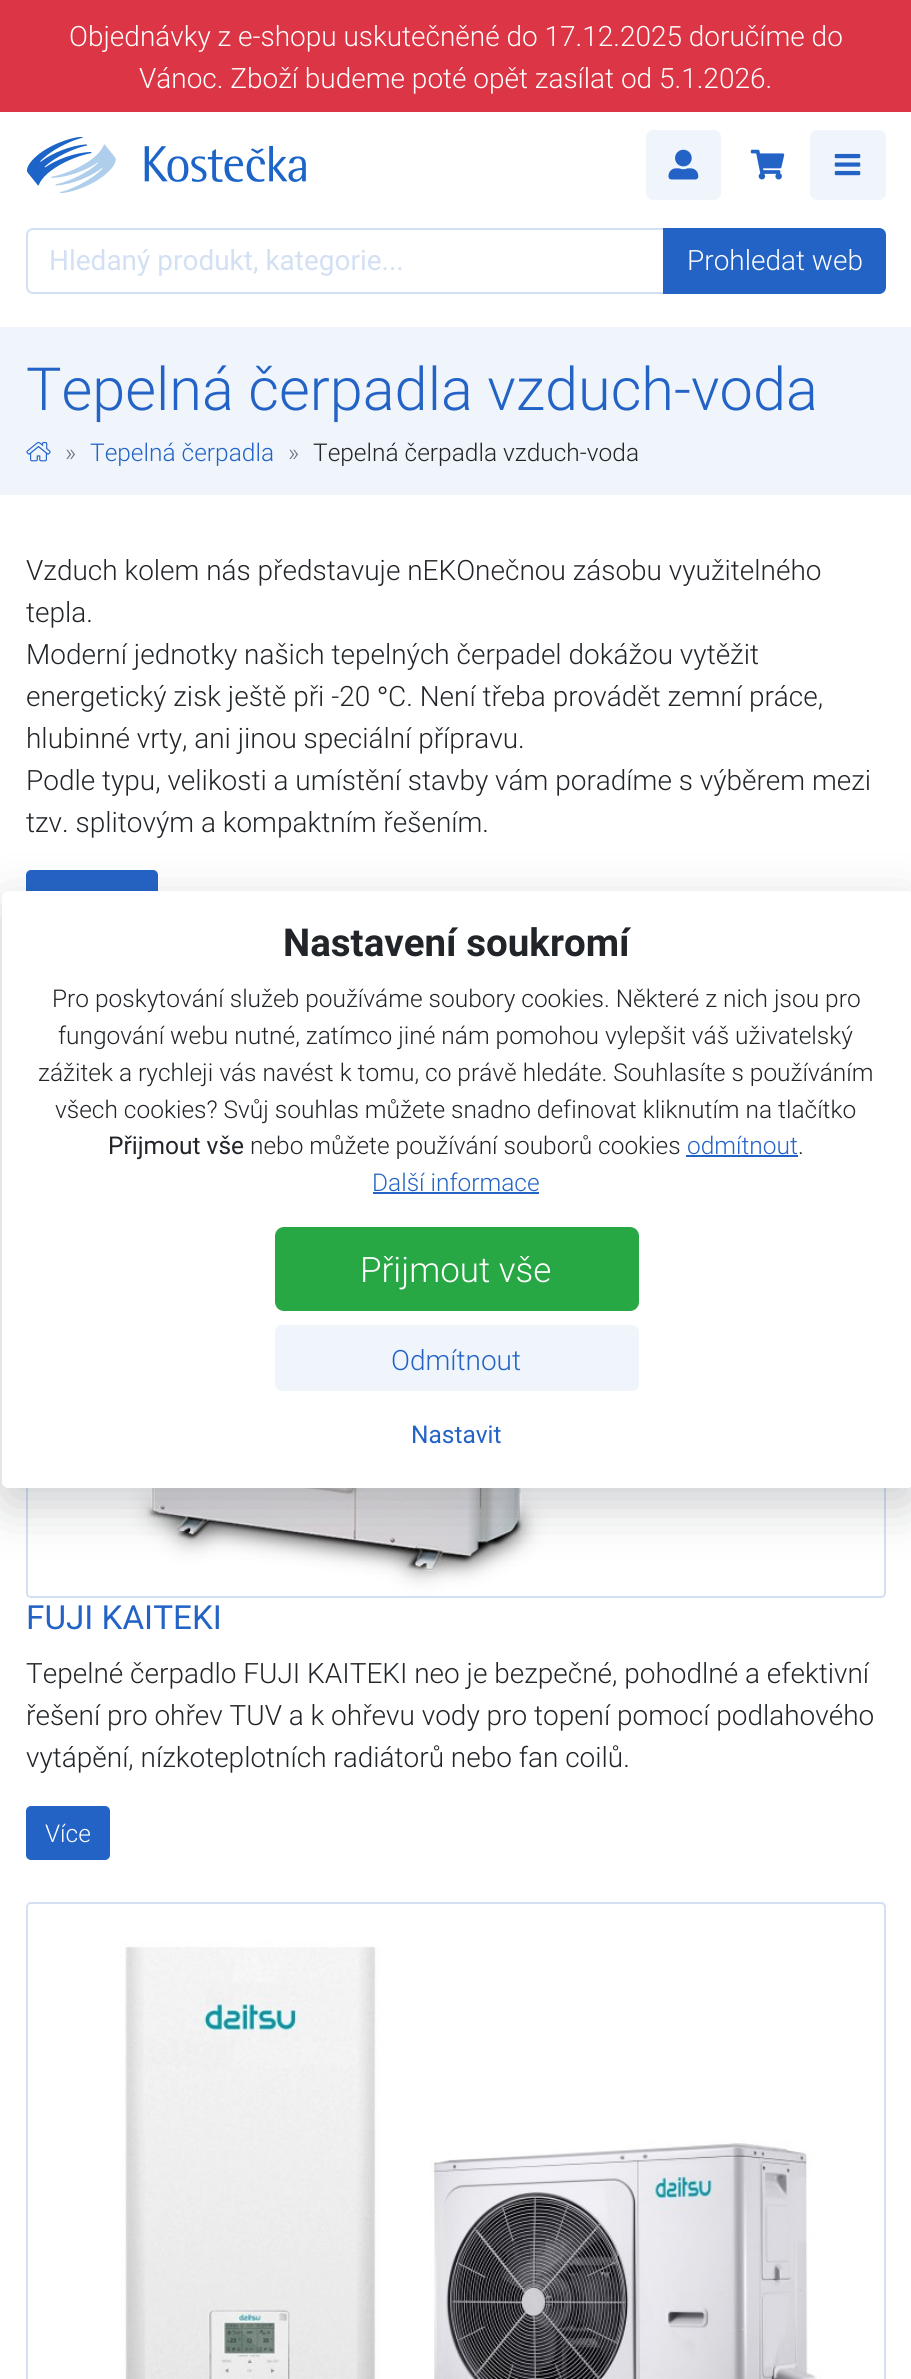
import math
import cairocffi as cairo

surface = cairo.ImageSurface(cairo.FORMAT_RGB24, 911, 2379)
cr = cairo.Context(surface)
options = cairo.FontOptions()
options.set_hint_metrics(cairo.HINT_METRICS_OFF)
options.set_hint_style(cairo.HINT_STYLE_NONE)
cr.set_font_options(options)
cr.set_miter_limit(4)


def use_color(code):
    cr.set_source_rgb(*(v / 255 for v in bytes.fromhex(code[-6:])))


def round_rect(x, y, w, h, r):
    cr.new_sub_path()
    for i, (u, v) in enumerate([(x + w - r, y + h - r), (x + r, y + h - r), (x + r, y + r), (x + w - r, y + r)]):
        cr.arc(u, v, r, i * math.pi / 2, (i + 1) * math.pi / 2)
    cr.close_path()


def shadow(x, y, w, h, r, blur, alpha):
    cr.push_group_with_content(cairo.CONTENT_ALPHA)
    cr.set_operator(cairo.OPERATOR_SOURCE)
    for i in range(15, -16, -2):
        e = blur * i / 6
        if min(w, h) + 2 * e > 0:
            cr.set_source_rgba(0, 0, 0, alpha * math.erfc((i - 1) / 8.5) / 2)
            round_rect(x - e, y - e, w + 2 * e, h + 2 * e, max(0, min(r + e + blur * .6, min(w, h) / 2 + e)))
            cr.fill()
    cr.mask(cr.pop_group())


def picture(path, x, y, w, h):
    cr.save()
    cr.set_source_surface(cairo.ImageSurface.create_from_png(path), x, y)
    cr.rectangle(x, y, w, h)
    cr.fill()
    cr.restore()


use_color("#ffffff")
cr.paint()
use_color("#dc3545")
cr.rectangle(0, 0, 911, 112)
cr.fill()
cr.select_font_face("Roboto Light")
cr.set_font_size(28)
use_color("#ffffff")
cr.move_to(69, 46)
cr.show_text("Objednávky z e-shopu uskutečněné do 17.12.2025 doručíme do")
cr.move_to(139, 88)
cr.show_text("Vánoc. Zboží budeme poté opět zasílat od 5.1.2026.")
picture("img1.png", 27, 137, 279, 56)
use_color("#eff5fb")
round_rect(647, 131, 73, 68, 6)
cr.fill_preserve()
cr.stroke()
picture("img2.png", 668, 149, 31, 31)
picture("img3.png", 750, 149, 35, 31)
round_rect(811, 131, 74, 68, 6)
cr.fill_preserve()
cr.stroke()
picture("img4.png", 834, 153, 27, 23)
cr.new_path()
cr.move_to(33, 229)
cr.line_to(664, 229)
cr.line_to(664, 293)
cr.line_to(33, 293)
cr.curve_to(29.5, 293, 27, 290.5, 27, 287)
cr.line_to(27, 235)
cr.curve_to(27, 231.5, 29.5, 229, 33, 229)
cr.close_path()
use_color("#d3e0f4")
cr.stroke()
cr.select_font_face("Roboto")
cr.move_to(49, 270)
cr.show_text("Hledaný produkt, kategorie...")
use_color("#2363c6")
cr.new_path()
cr.move_to(664, 229)
cr.line_to(879, 229)
cr.curve_to(882.5, 229, 885, 231.5, 885, 235)
cr.line_to(885, 287)
cr.curve_to(885, 290.5, 882.5, 293, 879, 293)
cr.line_to(664, 293)
cr.close_path()
cr.fill_preserve()
cr.stroke()
cr.select_font_face("Roboto Light")
use_color("#ffffff")
cr.move_to(687, 270)
cr.show_text("Prohledat web")
use_color("#eff5fb")
cr.rectangle(0, 327, 911, 168)
cr.fill()
cr.set_font_size(59.5)
use_color("#2363c6")
cr.move_to(26, 410)
cr.show_text("Tepelná čerpadla vzduch-voda")
picture("img5.png", 26, 442, 25, 20)
cr.set_font_size(24.5)
use_color("#6c757d")
cr.move_to(65, 461)
cr.show_text("»")
use_color("#2363c6")
cr.move_to(90, 461)
cr.show_text("Tepelná čerpadla")
use_color("#6c757d")
cr.move_to(288, 461)
cr.show_text("»")
use_color("#212529")
cr.move_to(313, 461)
cr.show_text("Tepelná čerpadla vzduch-voda")
cr.set_font_size(28)
cr.move_to(26, 580)
cr.show_text("Vzduch kolem nás představuje nEKOnečnou zásobu využitelného")
cr.move_to(26, 622)
cr.show_text("tepla.")
cr.move_to(26, 664)
cr.show_text("Moderní jednotky našich tepelných čerpadel dokážou vytěžit")
cr.move_to(26, 706)
cr.show_text("energetický zisk ještě při -20")
cr.select_font_face("Liberation Sans")
cr.move_to(377, 706)
cr.show_text("°")
cr.select_font_face("Roboto Light")
cr.move_to(388, 706)
cr.show_text("C. Není třeba provádět zemní práce,")
cr.move_to(26, 748)
cr.show_text("hlubinné vrty, ani jinou speciální přípravu.")
cr.move_to(26, 790)
cr.show_text("Podle typu, velikosti a umístění stavby vám poradíme s výběrem mezi")
cr.move_to(26, 832)
cr.show_text("tzv. splitovým a kompaktním řešením.")
use_color("#2363c6")
round_rect(27, 871, 130, 52, 4)
cr.fill_preserve()
cr.stroke()
round_rect(27, 967, 858, 630, 4)
use_color("#d3e0f4")
cr.stroke()
picture("img6.png", 28, 1488, 855, 108)
cr.select_font_face("Roboto")
cr.set_font_size(33.25)
use_color("#2363c6")
cr.move_to(26, 1629)
cr.show_text("FUJI KAITEKI")
cr.select_font_face("Roboto Light")
cr.set_font_size(28)
use_color("#212529")
cr.move_to(26, 1683)
cr.show_text("Tepelné čerpadlo FUJI KAITEKI neo je bezpečné, pohodlné a efektivní")
cr.move_to(26, 1725)
cr.show_text("řešení pro ohřev TUV a k ohřevu vody pro topení pomocí podlahového")
cr.move_to(26, 1767)
cr.show_text("vytápění, nízkoteplotních radiátorů nebo fan coilů.")
use_color("#2363c6")
round_rect(27, 1807, 82, 52, 4)
cr.fill_preserve()
cr.stroke()
cr.set_font_size(24.5)
use_color("#ffffff")
cr.move_to(45, 1842)
cr.show_text("Více")
round_rect(27, 1903, 858, 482, 4)
use_color("#d3e0f4")
cr.stroke()
picture("img7.png", 28, 1904, 855, 475)
cr.save()
cr.set_fill_rule(cairo.FILL_RULE_EVEN_ODD)
cr.new_path()
cr.move_to(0, 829)
cr.line_to(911, 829)
cr.line_to(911, 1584)
cr.line_to(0, 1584)
cr.close_path()
cr.move_to(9, 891)
cr.line_to(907, 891)
cr.curve_to(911, 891, 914, 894, 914, 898)
cr.line_to(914, 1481)
cr.curve_to(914, 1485, 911, 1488, 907, 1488)
cr.line_to(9, 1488)
cr.curve_to(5, 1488, 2, 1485, 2, 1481)
cr.line_to(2, 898)
cr.curve_to(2, 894, 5, 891, 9, 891)
cr.close_path()
cr.clip()
use_color("#343a40")
shadow(2, 908, 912, 597, 7, 26, 0.25)
cr.restore()
use_color("#ffffff")
round_rect(2, 891, 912, 597, 7)
cr.fill()
cr.select_font_face("Roboto", cairo.FONT_SLANT_NORMAL, cairo.FONT_WEIGHT_BOLD)
cr.set_font_size(38.5)
use_color("#212529")
cr.move_to(283, 956)
cr.show_text("Nastavení soukromí")
cr.select_font_face("Roboto Light")
cr.set_font_size(24.5)
cr.move_to(52, 1007)
cr.show_text("Pro poskytování služeb používáme soubory cookies. Některé z nich jsou pro")
cr.move_to(58, 1044)
cr.show_text("fungování webu nutné, zatímco jiné nám pomohou vylepšit váš uživatelský")
cr.move_to(38, 1081)
cr.show_text("zážitek a rychleji vás navést k tomu, co právě hledáte. Souhlasíte s používáním")
cr.move_to(55, 1118)
cr.show_text("všech cookies? Svůj souhlas můžete snadno definovat kliknutím na tlačítko")
cr.select_font_face("Roboto")
cr.move_to(108, 1154)
cr.show_text("Přijmout vše")
cr.select_font_face("Roboto Light")
cr.move_to(250, 1154)
cr.show_text("nebo můžete používání souborů cookies")
use_color("#2363c6")
cr.move_to(687, 1154)
cr.show_text("odmítnout")
cr.rectangle(686, 1155, 112, 2)
cr.fill()
use_color("#212529")
cr.move_to(798, 1154)
cr.show_text(".")
use_color("#2363c6")
cr.move_to(372, 1191)
cr.show_text("Další informace")
cr.rectangle(373, 1192, 166, 2)
cr.fill()
use_color("#28a745")
round_rect(276, 1228, 362, 82, 8)
cr.fill_preserve()
cr.stroke()
cr.set_font_size(35)
use_color("#ffffff")
cr.move_to(360, 1282)
cr.show_text("Přijmout vše")
use_color("#eff5fb")
round_rect(276, 1326, 362, 64, 6)
cr.fill_preserve()
cr.stroke()
cr.set_font_size(28)
use_color("#2363c6")
cr.move_to(391, 1370)
cr.show_text("Odmítnout")
cr.select_font_face("Roboto")
cr.set_font_size(24.5)
cr.move_to(411, 1443)
cr.show_text("Nastavit")
surface.write_to_png("result.png")
